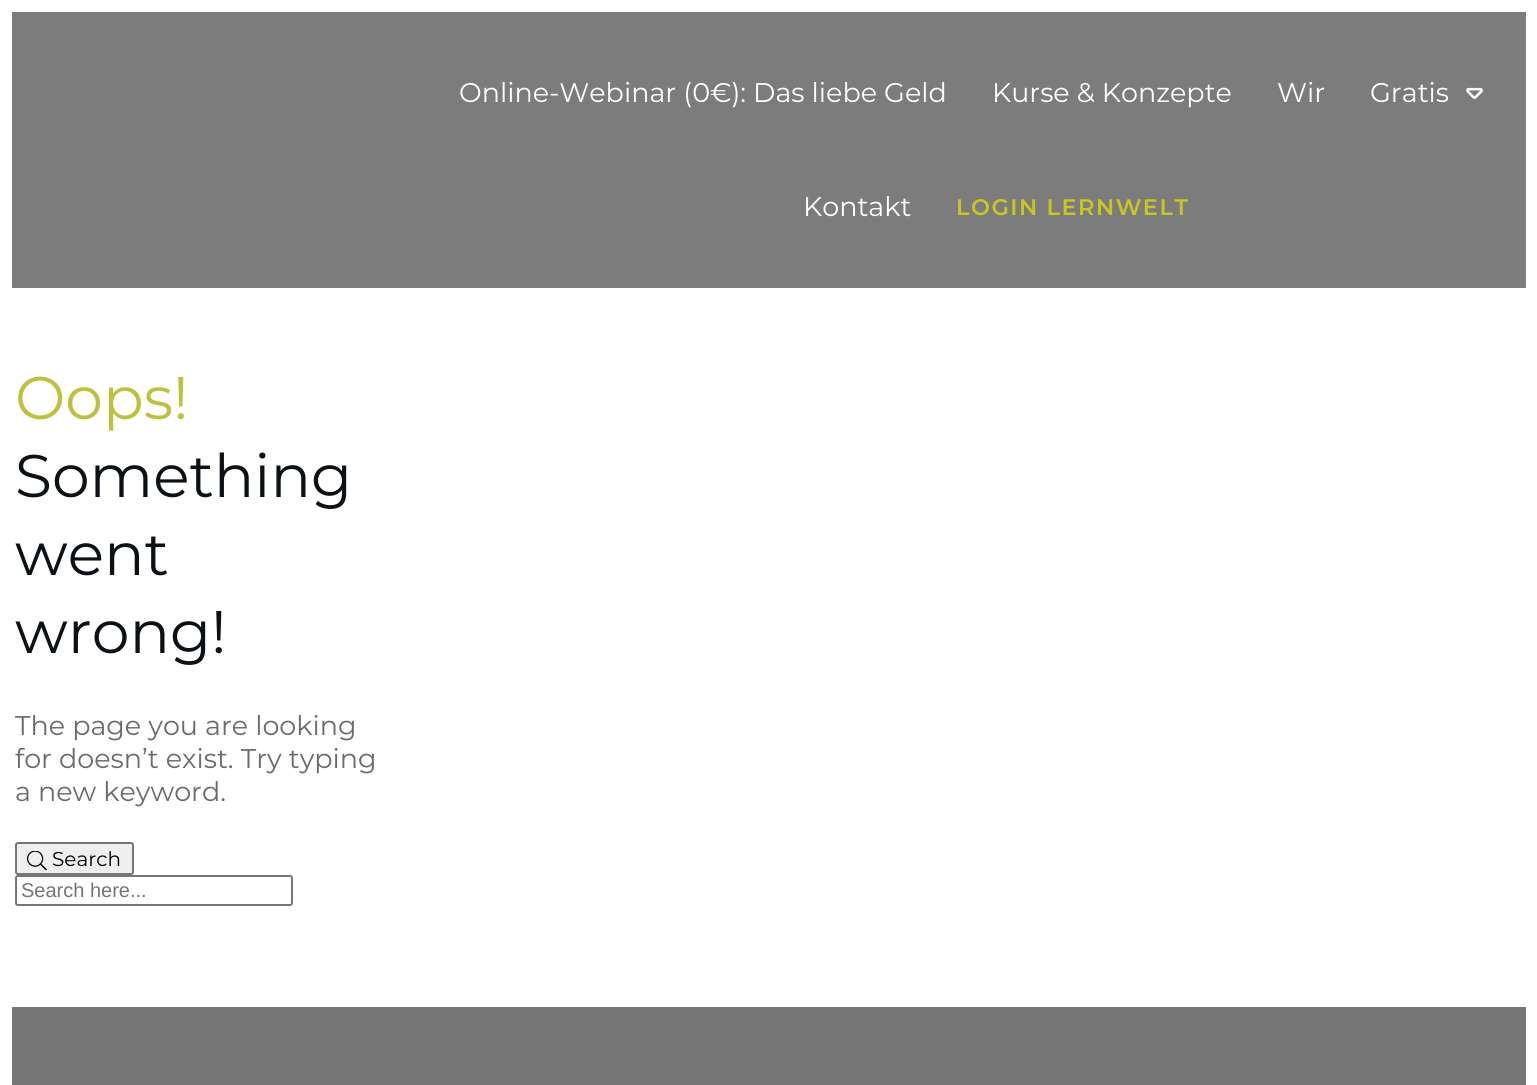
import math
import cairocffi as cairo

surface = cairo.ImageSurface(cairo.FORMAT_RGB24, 1537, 1085)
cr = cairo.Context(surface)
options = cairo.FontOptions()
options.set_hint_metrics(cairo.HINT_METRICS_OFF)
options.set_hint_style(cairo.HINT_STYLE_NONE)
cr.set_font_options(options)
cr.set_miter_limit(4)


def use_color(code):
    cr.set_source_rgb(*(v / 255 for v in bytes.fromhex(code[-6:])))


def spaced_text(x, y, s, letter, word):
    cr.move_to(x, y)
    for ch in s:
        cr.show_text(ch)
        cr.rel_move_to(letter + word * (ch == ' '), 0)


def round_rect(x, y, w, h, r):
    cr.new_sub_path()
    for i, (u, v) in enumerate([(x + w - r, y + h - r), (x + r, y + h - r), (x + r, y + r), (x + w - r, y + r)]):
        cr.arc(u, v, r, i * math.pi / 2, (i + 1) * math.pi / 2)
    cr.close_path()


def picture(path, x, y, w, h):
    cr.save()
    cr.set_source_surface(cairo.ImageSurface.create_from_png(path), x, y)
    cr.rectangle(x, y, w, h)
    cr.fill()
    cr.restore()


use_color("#ffffff")
cr.paint()
use_color("#7c7c7c")
cr.rectangle(12, 12, 1514, 276)
cr.fill()
cr.select_font_face("Montserrat")
cr.set_font_size(27)
use_color("#ffffff")
cr.move_to(459, 102)
cr.show_text("Online-Webinar (0€): Das liebe Geld")
cr.move_to(992, 102)
cr.show_text("Kurse & Konzepte")
cr.move_to(1277, 102)
cr.show_text("Wir")
cr.move_to(1370, 102)
cr.show_text("Gratis")
picture("img1.png", 1466, 87, 17, 12)
cr.move_to(803, 216)
cr.show_text("Kontakt")
cr.select_font_face("Montserrat SemiBold")
cr.set_font_size(22.5)
use_color("#cac521")
spaced_text(956, 215, "LOGIN LERNWELT", 1.5, 0)
cr.select_font_face("Montserrat")
cr.set_font_size(60)
use_color("#bec13e")
cr.move_to(15, 419)
cr.show_text("Oops!")
use_color("#0c1115")
cr.move_to(15, 497)
cr.show_text("Something")
cr.move_to(15, 575)
cr.show_text("went")
cr.move_to(15, 653)
cr.show_text("wrong!")
cr.set_font_size(27)
use_color("#6a6b6c")
cr.move_to(15, 735)
cr.show_text("The page you are looking")
cr.move_to(15, 768)
cr.show_text("for doesn’t exist. Try typing")
cr.move_to(15, 801)
cr.show_text("a new keyword.")
use_color("#efefef")
round_rect(16, 843, 117, 31, 2)
cr.fill_preserve()
use_color("#767676")
cr.stroke()
picture("img2.png", 27, 851, 20, 19)
cr.set_font_size(20)
use_color("#000000")
cr.move_to(52, 866)
cr.show_text("Search")
round_rect(16, 876, 276, 29, 2)
use_color("#767676")
cr.stroke()
cr.select_font_face("Liberation Sans")
use_color("#757575")
cr.move_to(21, 897)
cr.show_text("Search here...")
use_color("#777777")
cr.rectangle(12, 1007, 1514, 78)
cr.fill()
surface.write_to_png("result.png")
